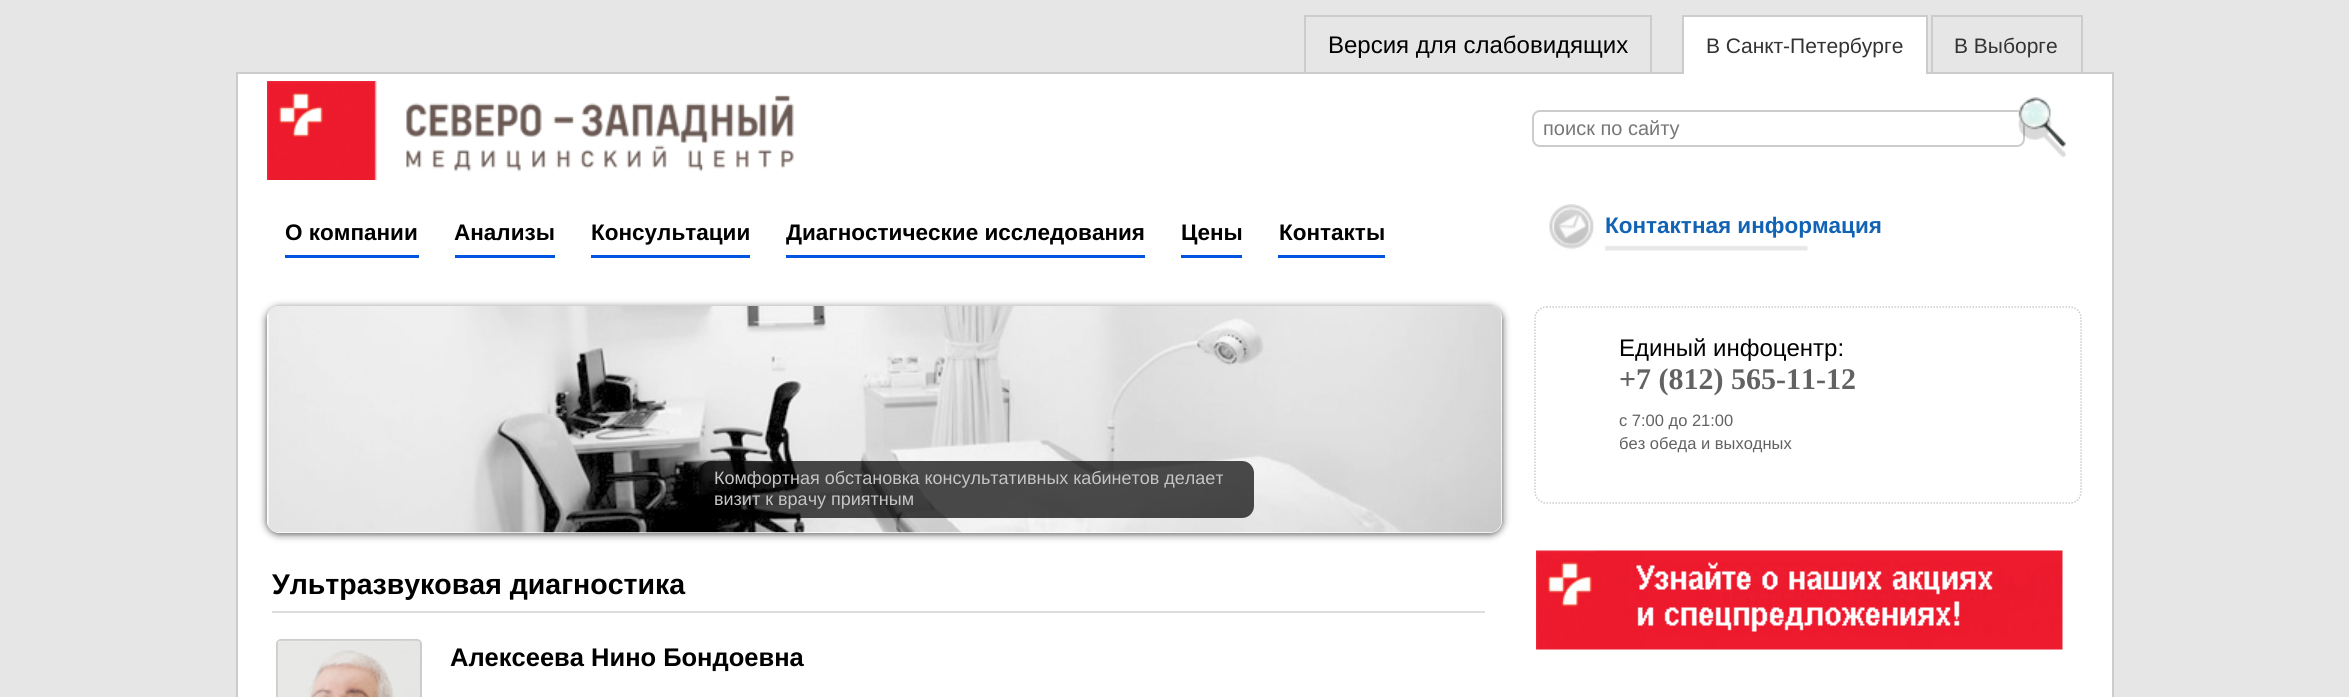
import math
import cairocffi as cairo

surface = cairo.ImageSurface(cairo.FORMAT_RGB24, 2349, 697)
cr = cairo.Context(surface)
options = cairo.FontOptions()
options.set_hint_metrics(cairo.HINT_METRICS_OFF)
options.set_hint_style(cairo.HINT_STYLE_NONE)
cr.set_font_options(options)
cr.set_miter_limit(4)


def use_color(code):
    cr.set_source_rgb(*(v / 255 for v in bytes.fromhex(code[-6:])))


def round_rect(x, y, w, h, r):
    cr.new_sub_path()
    for i, (u, v) in enumerate([(x + w - r, y + h - r), (x + r, y + h - r), (x + r, y + r), (x + w - r, y + r)]):
        cr.arc(u, v, r, i * math.pi / 2, (i + 1) * math.pi / 2)
    cr.close_path()


def shadow(x, y, w, h, r, blur, alpha):
    cr.push_group_with_content(cairo.CONTENT_ALPHA)
    cr.set_operator(cairo.OPERATOR_SOURCE)
    for i in range(15, -16, -2):
        e = blur * i / 6
        if min(w, h) + 2 * e > 0:
            cr.set_source_rgba(0, 0, 0, alpha * math.erfc((i - 1) / 8.5) / 2)
            round_rect(x - e, y - e, w + 2 * e, h + 2 * e, max(0, min(r + e + blur * .6, min(w, h) / 2 + e)))
            cr.fill()
    cr.mask(cr.pop_group())


def picture(path, x, y, w, h):
    cr.save()
    cr.set_source_surface(cairo.ImageSurface.create_from_png(path), x, y)
    cr.rectangle(x, y, w, h)
    cr.fill()
    cr.restore()


use_color("#e7e6e6")
cr.paint()
use_color("#cccccc")
cr.rectangle(1304, 15, 348, 2)
cr.fill()
use_color("#ffffff")
cr.rectangle(237, 73, 1876, 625)
cr.fill_preserve()
use_color("#cccccc")
cr.stroke()
cr.rectangle(1650, 15, 2, 59)
cr.fill()
cr.rectangle(1304, 15, 2, 59)
cr.fill()
cr.select_font_face("Liberation Sans")
cr.set_font_size(24)
use_color("#000000")
cr.move_to(1328, 53)
cr.show_text("Версия для слабовидящих")
use_color("#ffffff")
cr.rectangle(1684, 17, 242, 57)
cr.fill()
use_color("#cccccc")
cr.rectangle(1682, 15, 246, 2)
cr.fill()
cr.rectangle(1926, 15, 2, 59)
cr.fill()
cr.rectangle(1682, 15, 2, 59)
cr.fill()
cr.set_font_size(21)
use_color("#333333")
cr.move_to(1706, 53)
cr.show_text("В Санкт-Петербурге")
use_color("#cccccc")
cr.rectangle(1931, 15, 151, 2)
cr.fill()
cr.rectangle(2081, 15, 2, 59)
cr.fill()
cr.rectangle(1931, 15, 2, 59)
cr.fill()
use_color("#333333")
cr.move_to(1954, 53)
cr.show_text("В Выборге")
picture("img1.png", 267, 81, 527, 99)
round_rect(1533, 111, 491, 35, 7)
use_color("#cccccc")
cr.stroke()
cr.set_font_size(20)
use_color("#777777")
cr.move_to(1543, 135)
cr.show_text("поиск по сайту")
picture("img2.png", 2018, 97, 48, 61)
use_color("#0054df")
cr.rectangle(285, 255, 134, 3)
cr.fill()
cr.select_font_face("Liberation Sans", cairo.FONT_SLANT_NORMAL, cairo.FONT_WEIGHT_BOLD)
cr.set_font_size(22.5)
use_color("#000000")
cr.move_to(285, 240)
cr.show_text("О компании")
use_color("#0054df")
cr.rectangle(455, 255, 100, 3)
cr.fill()
use_color("#000000")
cr.move_to(454, 240)
cr.show_text("Анализы")
use_color("#0054df")
cr.rectangle(591, 255, 159, 3)
cr.fill()
use_color("#000000")
cr.move_to(591, 240)
cr.show_text("Консультации")
use_color("#0054df")
cr.rectangle(786, 255, 359, 3)
cr.fill()
use_color("#000000")
cr.move_to(786, 240)
cr.show_text("Диагностические исследования")
use_color("#0054df")
cr.rectangle(1181, 255, 61, 3)
cr.fill()
use_color("#000000")
cr.move_to(1181, 240)
cr.show_text("Цены")
use_color("#0054df")
cr.rectangle(1278, 255, 107, 3)
cr.fill()
use_color("#000000")
cr.move_to(1279, 240)
cr.show_text("Контакты")
picture("img3.png", 1549, 204, 259, 47)
use_color("#1363b4")
cr.move_to(1605, 233)
cr.show_text("Контактная информация")
cr.new_path()
cr.move_to(1546.5, 307)
cr.line_to(2070, 307)
cr.curve_to(2076, 307, 2081, 312, 2081, 318)
cr.line_to(2081, 492)
cr.curve_to(2081, 498, 2076, 503, 2070, 503)
cr.line_to(1546.5, 503)
cr.curve_to(1540.5, 503, 1535, 498, 1535, 492)
cr.line_to(1535, 318)
cr.curve_to(1535, 312, 1540.5, 307, 1546.5, 307)
cr.close_path()
use_color("#cccccc")
cr.set_line_width(1.5)
cr.set_dash([1.5, 1.5])
cr.stroke()
cr.select_font_face("Liberation Sans")
cr.set_font_size(24)
use_color("#000000")
cr.move_to(1619, 356)
cr.show_text("Единый инфоцентр:")
cr.select_font_face("Liberation Serif", cairo.FONT_SLANT_NORMAL, cairo.FONT_WEIGHT_BOLD)
cr.set_font_size(30)
use_color("#626262")
cr.move_to(1619, 389)
cr.show_text("+7 (812) 565-11-12")
cr.select_font_face("Liberation Sans")
cr.set_font_size(16.5)
cr.move_to(1619, 426)
cr.show_text("с 7:00 до 21:00")
cr.move_to(1619, 449)
cr.show_text("без обеда и выходных")
use_color("#4a4a4a")
shadow(267, 308, 1235, 226, 12, 4, 1)
use_color("#ffffff")
round_rect(267, 306, 1235, 227, 12)
cr.fill()
picture("img4.png", 267, 306, 1235, 227)
cr.set_source_rgba(0, 0, 0, 0.7)
round_rect(699, 461, 555, 57, 12)
cr.fill()
cr.set_font_size(18)
use_color("#c5c5c5")
cr.move_to(714, 484)
cr.show_text("Комфортная обстановка консультативных кабинетов делает")
cr.move_to(714, 505)
cr.show_text("визит к врачу приятным")
use_color("#dddddd")
cr.rectangle(272, 611, 1213, 2)
cr.fill()
cr.select_font_face("Liberation Sans", cairo.FONT_SLANT_NORMAL, cairo.FONT_WEIGHT_BOLD)
cr.set_font_size(28.5)
use_color("#000000")
cr.move_to(272, 594)
cr.show_text("Ультразвуковая диагностика")
round_rect(277, 640, 144, 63, 4)
use_color("#cccccc")
cr.set_line_width(2)
cr.set_dash([])
cr.stroke()
picture("img5.png", 277, 640, 143, 57)
cr.set_font_size(25.5)
use_color("#000000")
cr.move_to(450, 666)
cr.show_text("Алексеева Нино Бондоевна")
picture("img6.png", 1536, 550, 527, 100)
surface.write_to_png("result.png")
